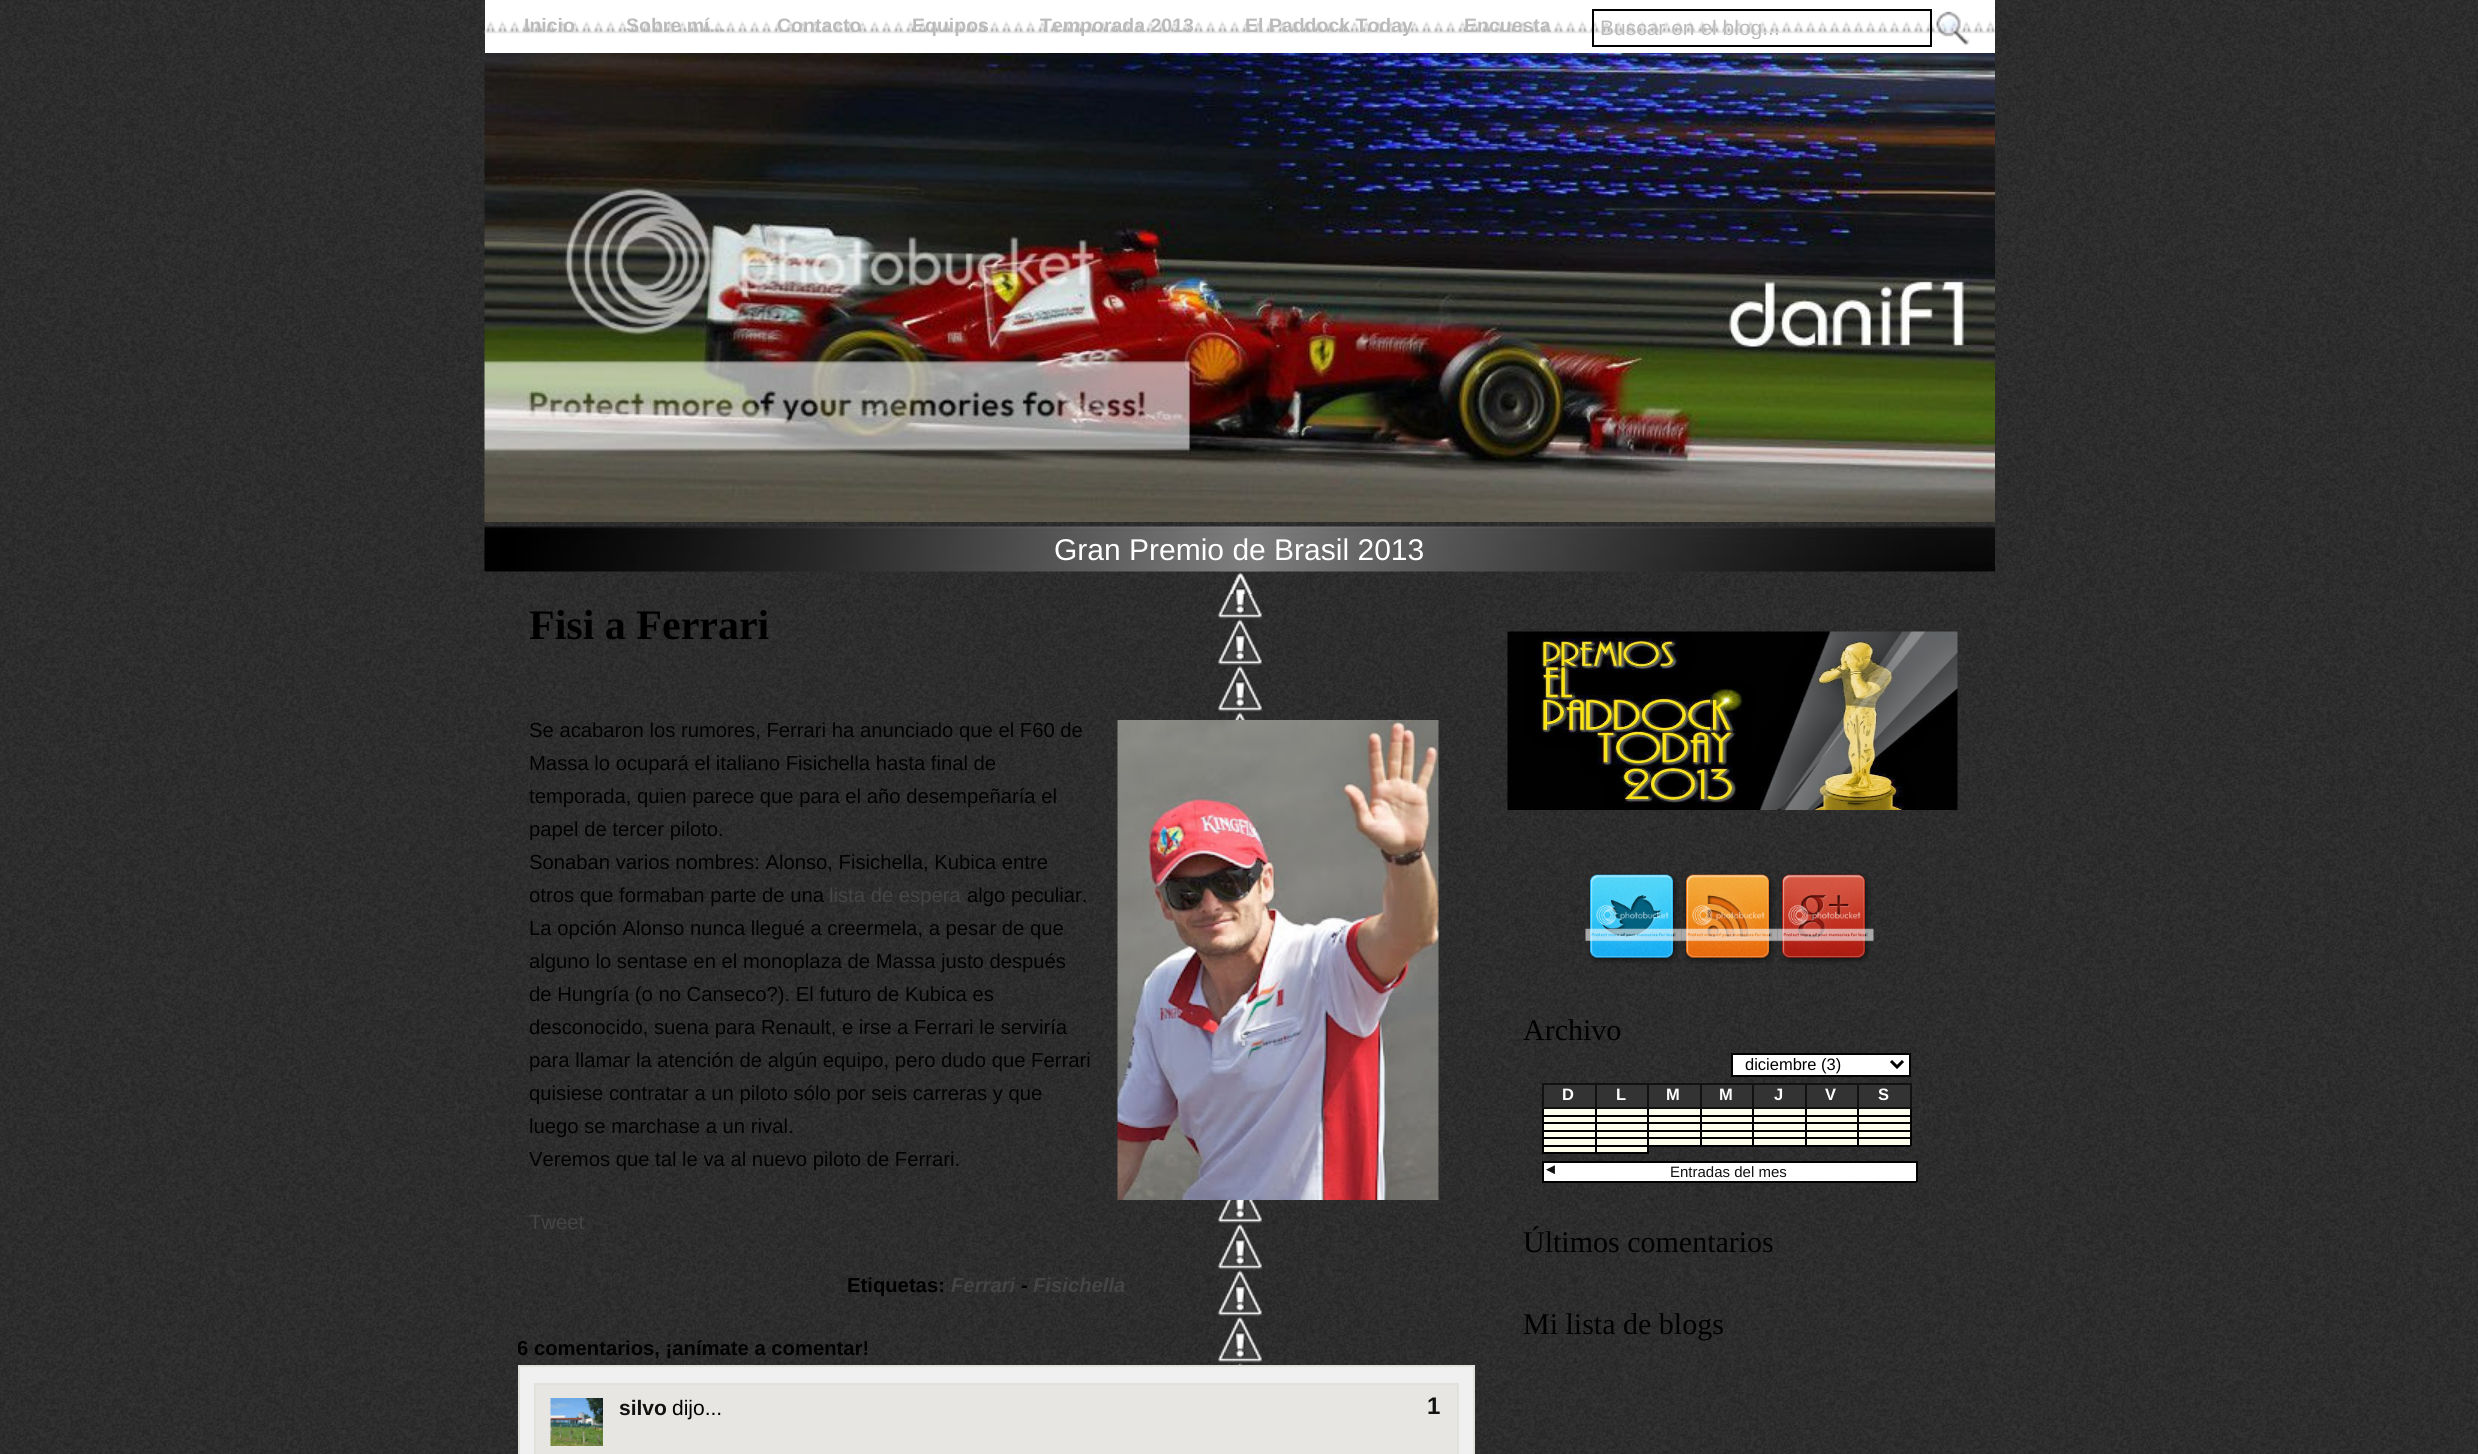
import math
import cairocffi as cairo

surface = cairo.ImageSurface(cairo.FORMAT_RGB24, 2478, 1454)
cr = cairo.Context(surface)
options = cairo.FontOptions()
options.set_hint_metrics(cairo.HINT_METRICS_OFF)
options.set_hint_style(cairo.HINT_STYLE_NONE)
cr.set_font_options(options)
cr.set_miter_limit(4)


def use_color(code):
    cr.set_source_rgb(*(v / 255 for v in bytes.fromhex(code[-6:])))


def picture(path, x, y, w, h):
    cr.save()
    cr.set_source_surface(cairo.ImageSurface.create_from_png(path), x, y)
    cr.rectangle(x, y, w, h)
    cr.fill()
    cr.restore()


use_color("#ffffff")
cr.paint()
picture("img1.png", 0, 0, 2478, 1454)
picture("img4.png", 484, 52, 1511, 470)
use_color("#ffffff")
cr.rectangle(485, 0, 1510, 53)
cr.fill()
picture("img2.png", 484, 21, 1511, 13)
cr.select_font_face("Liberation Sans", cairo.FONT_SLANT_NORMAL, cairo.FONT_WEIGHT_BOLD)
cr.set_font_size(19.5)
use_color("#bbbbbb")
cr.move_to(524, 32)
cr.show_text("Inicio")
cr.move_to(626, 32)
cr.show_text("Sobre mí...")
cr.move_to(777, 32)
cr.show_text("Contacto")
cr.move_to(912, 32)
cr.show_text("Equipos")
cr.move_to(1040, 32)
cr.show_text("Temporada 2013")
cr.move_to(1245, 32)
cr.show_text("El Paddock Today")
cr.move_to(1464, 32)
cr.show_text("Encuesta")
cr.rectangle(1593, 10, 338, 36)
use_color("#000000")
cr.stroke()
cr.save()
cr.rectangle(1601, 15, 330, 24)
cr.clip()
cr.select_font_face("Liberation Sans")
cr.set_font_size(21)
use_color("#bbbbbb")
cr.move_to(1600, 35)
cr.show_text("Buscar en el blog...")
cr.restore()
picture("img3.png", 1936, 11, 34, 34)
picture("img6.png", 1217, 571, 46, 794)
picture("img5.png", 484, 526, 1511, 46)
cr.select_font_face("Liberation Sans")
cr.set_font_size(30)
use_color("#ffffff")
cr.move_to(1054, 560)
cr.show_text("Gran Premio de Brasil 2013")
picture("img7.png", 1229, 572, 24, 22)
cr.select_font_face("Liberation Serif", cairo.FONT_SLANT_NORMAL, cairo.FONT_WEIGHT_BOLD)
cr.set_font_size(42)
use_color("#000000")
cr.move_to(529, 639)
cr.show_text("Fisi a Ferrari")
cr.select_font_face("Liberation Sans")
cr.set_font_size(20.25)
cr.move_to(529, 737)
cr.show_text("Se acabaron los rumores, Ferrari ha anunciado que el F60 de")
picture("img8.png", 1117, 720, 322, 480)
cr.move_to(529, 770)
cr.show_text("Massa lo ocupará el italiano Fisichella hasta final de")
cr.move_to(529, 803)
cr.show_text("temporada, quien parece que para el año desempeñaría el")
cr.move_to(529, 836)
cr.show_text("papel de tercer piloto.")
cr.move_to(529, 869)
cr.show_text("Sonaban varios nombres: Alonso, Fisichella, Kubica entre")
cr.move_to(529, 902)
cr.show_text("otros que formaban parte de una")
use_color("#444444")
cr.move_to(829, 902)
cr.show_text("lista de espera")
use_color("#000000")
cr.move_to(967, 902)
cr.show_text("algo peculiar.")
cr.move_to(529, 935)
cr.show_text("La opción Alonso nunca llegué a creermela, a pesar de que")
cr.move_to(529, 968)
cr.show_text("alguno lo sentase en el monoplaza de Massa justo después")
cr.move_to(529, 1001)
cr.show_text("de Hungría (o no Canseco?). El futuro de Kubica es")
cr.move_to(529, 1034)
cr.show_text("desconocido, suena para Renault, e irse a Ferrari le serviría")
cr.move_to(529, 1067)
cr.show_text("para llamar la atención de algún equipo, pero dudo que Ferrari")
cr.move_to(529, 1100)
cr.show_text("quisiese contratar a un piloto sólo por seis carreras y que")
cr.move_to(529, 1133)
cr.show_text("luego se marchase a un rival.")
cr.move_to(529, 1166)
cr.show_text("Veremos que tal le va al nuevo piloto de Ferrari.")
use_color("#444444")
cr.move_to(529, 1229)
cr.show_text("Tweet")
cr.select_font_face("Liberation Sans", cairo.FONT_SLANT_NORMAL, cairo.FONT_WEIGHT_BOLD)
use_color("#000000")
cr.move_to(847, 1292)
cr.show_text("Etiquetas:")
cr.select_font_face("Liberation Sans", cairo.FONT_SLANT_ITALIC, cairo.FONT_WEIGHT_BOLD)
use_color("#444444")
cr.move_to(951, 1292)
cr.show_text("Ferrari")
use_color("#000000")
cr.move_to(1021, 1292)
cr.show_text("-")
use_color("#444444")
cr.move_to(1033, 1292)
cr.show_text("Fisichella")
cr.save()
cr.rectangle(518, 1332, 957, 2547)
cr.clip()
cr.select_font_face("Liberation Sans", cairo.FONT_SLANT_NORMAL, cairo.FONT_WEIGHT_BOLD)
use_color("#000000")
cr.move_to(517, 1355)
cr.show_text("6 comentarios, ¡anímate a comentar!")
cr.restore()
use_color("#f0f0f0")
cr.rectangle(519, 1366, 955, 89)
cr.fill_preserve()
use_color("#e2e0da")
cr.stroke()
use_color("#e7e6e3")
cr.rectangle(536, 1385, 921, 69)
cr.fill()
use_color("#e2e0da")
cr.rectangle(534, 1383, 924, 2)
cr.fill()
cr.rectangle(1457, 1383, 2, 71)
cr.fill()
cr.rectangle(534, 1383, 2, 71)
cr.fill()
picture("img9.png", 550, 1398, 53, 48)
cr.select_font_face("Liberation Sans", cairo.FONT_SLANT_NORMAL, cairo.FONT_WEIGHT_BOLD)
cr.set_font_size(21)
use_color("#111111")
cr.move_to(619, 1415)
cr.show_text("silvo")
cr.select_font_face("Liberation Sans")
use_color("#000000")
cr.move_to(672, 1415)
cr.show_text("dijo...")
cr.select_font_face("Liberation Sans", cairo.FONT_SLANT_NORMAL, cairo.FONT_WEIGHT_BOLD)
cr.set_font_size(24)
use_color("#111111")
cr.move_to(1427, 1414)
cr.show_text("1")
picture("img10.png", 1507, 631, 451, 179)
picture("img11.png", 1585, 873, 97, 91)
picture("img12.png", 1681, 873, 97, 91)
picture("img13.png", 1777, 873, 97, 91)
cr.select_font_face("Liberation Serif")
cr.set_font_size(30)
use_color("#000000")
cr.move_to(1523, 1040)
cr.show_text("Archivo")
use_color("#ffffff")
cr.rectangle(1732, 1054, 178, 22)
cr.fill_preserve()
use_color("#000000")
cr.stroke()
cr.new_path()
cr.move_to(1891, 1061)
cr.line_to(1897, 1067)
cr.line_to(1903, 1061)
cr.set_line_width(3)
cr.stroke()
cr.select_font_face("Liberation Sans")
cr.set_font_size(16.5)
cr.move_to(1745, 1070)
cr.show_text("diciembre (3)")
use_color("#333333")
cr.rectangle(1544, 1085, 51, 22)
cr.fill()
use_color("#111111")
cr.rectangle(1857, 1083, 54, 2)
cr.fill()
use_color("#000000")
cr.rectangle(1857, 1115, 54, 2)
cr.fill()
cr.rectangle(1857, 1122, 54, 2)
cr.fill()
cr.rectangle(1857, 1130, 54, 2)
cr.fill()
cr.rectangle(1857, 1137, 54, 2)
cr.fill()
cr.rectangle(1910, 1137, 2, 9)
cr.fill()
cr.rectangle(1910, 1130, 2, 9)
cr.fill()
cr.rectangle(1910, 1122, 2, 9)
cr.fill()
cr.rectangle(1910, 1107, 2, 17)
cr.fill()
use_color("#111111")
cr.rectangle(1910, 1083, 2, 26)
cr.fill()
use_color("#ffffee")
cr.rectangle(1542, 1109, 368, 6)
cr.fill()
cr.rectangle(1542, 1117, 368, 5)
cr.fill()
cr.rectangle(1542, 1124, 368, 6)
cr.fill()
cr.rectangle(1542, 1132, 368, 5)
cr.fill()
cr.rectangle(1542, 1139, 368, 6)
cr.fill()
use_color("#000000")
cr.rectangle(1857, 1145, 54, 2)
cr.fill()
cr.rectangle(1857, 1137, 2, 9)
cr.fill()
cr.rectangle(1805, 1137, 54, 2)
cr.fill()
cr.rectangle(1857, 1130, 2, 9)
cr.fill()
cr.rectangle(1805, 1130, 54, 2)
cr.fill()
cr.rectangle(1857, 1122, 2, 9)
cr.fill()
cr.rectangle(1805, 1122, 54, 2)
cr.fill()
cr.rectangle(1857, 1115, 2, 9)
cr.fill()
cr.rectangle(1805, 1115, 54, 2)
cr.fill()
cr.rectangle(1857, 1107, 2, 9)
cr.fill()
use_color("#111111")
cr.rectangle(1857, 1107, 54, 2)
cr.fill()
cr.rectangle(1857, 1083, 2, 26)
cr.fill()
cr.rectangle(1805, 1083, 54, 2)
cr.fill()
use_color("#000000")
cr.rectangle(1805, 1145, 54, 2)
cr.fill()
cr.rectangle(1805, 1137, 2, 9)
cr.fill()
cr.rectangle(1752, 1137, 54, 2)
cr.fill()
cr.rectangle(1805, 1130, 2, 9)
cr.fill()
cr.rectangle(1752, 1130, 54, 2)
cr.fill()
cr.rectangle(1805, 1122, 2, 9)
cr.fill()
cr.rectangle(1752, 1122, 54, 2)
cr.fill()
cr.rectangle(1805, 1115, 2, 9)
cr.fill()
cr.rectangle(1752, 1115, 54, 2)
cr.fill()
cr.rectangle(1805, 1107, 2, 9)
cr.fill()
use_color("#111111")
cr.rectangle(1805, 1107, 54, 2)
cr.fill()
cr.rectangle(1805, 1083, 2, 26)
cr.fill()
cr.rectangle(1752, 1083, 54, 2)
cr.fill()
use_color("#000000")
cr.rectangle(1752, 1145, 54, 2)
cr.fill()
cr.rectangle(1752, 1137, 2, 9)
cr.fill()
cr.rectangle(1700, 1137, 54, 2)
cr.fill()
cr.rectangle(1752, 1130, 2, 9)
cr.fill()
cr.rectangle(1700, 1130, 54, 2)
cr.fill()
cr.rectangle(1752, 1122, 2, 9)
cr.fill()
cr.rectangle(1700, 1122, 54, 2)
cr.fill()
cr.rectangle(1752, 1115, 2, 9)
cr.fill()
cr.rectangle(1700, 1115, 54, 2)
cr.fill()
cr.rectangle(1752, 1107, 2, 9)
cr.fill()
use_color("#111111")
cr.rectangle(1752, 1107, 54, 2)
cr.fill()
cr.rectangle(1752, 1083, 2, 26)
cr.fill()
cr.rectangle(1700, 1083, 54, 2)
cr.fill()
use_color("#000000")
cr.rectangle(1700, 1145, 54, 2)
cr.fill()
cr.rectangle(1700, 1137, 2, 9)
cr.fill()
cr.rectangle(1647, 1137, 54, 2)
cr.fill()
cr.rectangle(1700, 1130, 2, 9)
cr.fill()
cr.rectangle(1647, 1130, 54, 2)
cr.fill()
cr.rectangle(1700, 1122, 2, 9)
cr.fill()
cr.rectangle(1647, 1122, 54, 2)
cr.fill()
cr.rectangle(1700, 1115, 2, 9)
cr.fill()
cr.rectangle(1647, 1115, 54, 2)
cr.fill()
cr.rectangle(1700, 1107, 2, 9)
cr.fill()
use_color("#111111")
cr.rectangle(1700, 1107, 54, 2)
cr.fill()
cr.rectangle(1700, 1083, 2, 26)
cr.fill()
cr.rectangle(1647, 1083, 54, 2)
cr.fill()
use_color("#000000")
cr.rectangle(1595, 1145, 54, 2)
cr.fill()
cr.rectangle(1647, 1145, 2, 9)
cr.fill()
cr.rectangle(1647, 1145, 54, 2)
cr.fill()
cr.rectangle(1647, 1137, 2, 9)
cr.fill()
cr.rectangle(1595, 1137, 54, 2)
cr.fill()
cr.rectangle(1647, 1130, 2, 9)
cr.fill()
cr.rectangle(1595, 1130, 54, 2)
cr.fill()
cr.rectangle(1647, 1122, 2, 9)
cr.fill()
cr.rectangle(1595, 1122, 54, 2)
cr.fill()
cr.rectangle(1647, 1115, 2, 9)
cr.fill()
cr.rectangle(1595, 1115, 54, 2)
cr.fill()
cr.rectangle(1647, 1107, 2, 9)
cr.fill()
use_color("#111111")
cr.rectangle(1647, 1107, 54, 2)
cr.fill()
cr.rectangle(1647, 1083, 2, 26)
cr.fill()
cr.rectangle(1595, 1083, 54, 2)
cr.fill()
use_color("#ffffee")
cr.rectangle(1542, 1147, 105, 5)
cr.fill()
use_color("#000000")
cr.rectangle(1595, 1152, 54, 2)
cr.fill()
cr.rectangle(1595, 1145, 2, 9)
cr.fill()
cr.rectangle(1542, 1145, 54, 2)
cr.fill()
cr.rectangle(1595, 1137, 2, 9)
cr.fill()
cr.rectangle(1542, 1137, 54, 2)
cr.fill()
cr.rectangle(1595, 1130, 2, 9)
cr.fill()
cr.rectangle(1542, 1130, 54, 2)
cr.fill()
cr.rectangle(1595, 1122, 2, 9)
cr.fill()
cr.rectangle(1542, 1122, 54, 2)
cr.fill()
cr.rectangle(1595, 1115, 2, 9)
cr.fill()
cr.rectangle(1542, 1115, 54, 2)
cr.fill()
cr.rectangle(1595, 1107, 2, 9)
cr.fill()
use_color("#111111")
cr.rectangle(1595, 1107, 54, 2)
cr.fill()
cr.rectangle(1595, 1083, 2, 26)
cr.fill()
cr.rectangle(1542, 1083, 54, 2)
cr.fill()
use_color("#000000")
cr.rectangle(1542, 1152, 54, 2)
cr.fill()
cr.rectangle(1542, 1145, 2, 9)
cr.fill()
cr.rectangle(1542, 1137, 2, 9)
cr.fill()
cr.rectangle(1542, 1130, 2, 9)
cr.fill()
cr.rectangle(1542, 1122, 2, 9)
cr.fill()
cr.rectangle(1542, 1107, 2, 17)
cr.fill()
use_color("#111111")
cr.rectangle(1542, 1107, 54, 2)
cr.fill()
cr.rectangle(1542, 1083, 2, 26)
cr.fill()
cr.select_font_face("Liberation Sans", cairo.FONT_SLANT_NORMAL, cairo.FONT_WEIGHT_BOLD)
use_color("#ffffff")
cr.move_to(1562, 1100)
cr.show_text("D")
use_color("#333333")
cr.rectangle(1597, 1085, 50, 22)
cr.fill()
use_color("#ffffff")
cr.move_to(1616, 1100)
cr.show_text("L")
use_color("#333333")
cr.rectangle(1649, 1085, 51, 22)
cr.fill()
use_color("#ffffff")
cr.move_to(1666, 1100)
cr.show_text("M")
use_color("#333333")
cr.rectangle(1702, 1085, 50, 22)
cr.fill()
use_color("#ffffff")
cr.move_to(1719, 1100)
cr.show_text("M")
use_color("#333333")
cr.rectangle(1754, 1085, 51, 22)
cr.fill()
use_color("#ffffff")
cr.move_to(1774, 1100)
cr.show_text("J")
use_color("#333333")
cr.rectangle(1807, 1085, 50, 22)
cr.fill()
use_color("#ffffff")
cr.move_to(1825, 1100)
cr.show_text("V")
use_color("#333333")
cr.rectangle(1859, 1085, 51, 22)
cr.fill()
use_color("#ffffff")
cr.move_to(1878, 1100)
cr.show_text("S")
cr.rectangle(1544, 1163, 372, 18)
cr.fill()
use_color("#000000")
cr.rectangle(1542, 1161, 375, 2)
cr.fill()
cr.rectangle(1916, 1161, 2, 21)
cr.fill()
cr.rectangle(1542, 1181, 375, 2)
cr.fill()
cr.rectangle(1542, 1161, 2, 21)
cr.fill()
cr.select_font_face("Liberation Sans")
cr.set_font_size(15)
use_color("#111111")
cr.move_to(1543, 1174)
cr.show_text("◄")
cr.move_to(1670, 1177)
cr.show_text("Entradas del mes")
cr.select_font_face("Liberation Serif")
cr.set_font_size(30)
use_color("#000000")
cr.move_to(1523, 1252)
cr.show_text("Últimos comentarios")
cr.move_to(1523, 1334)
cr.show_text("Mi lista de blogs")
surface.write_to_png("result.png")
